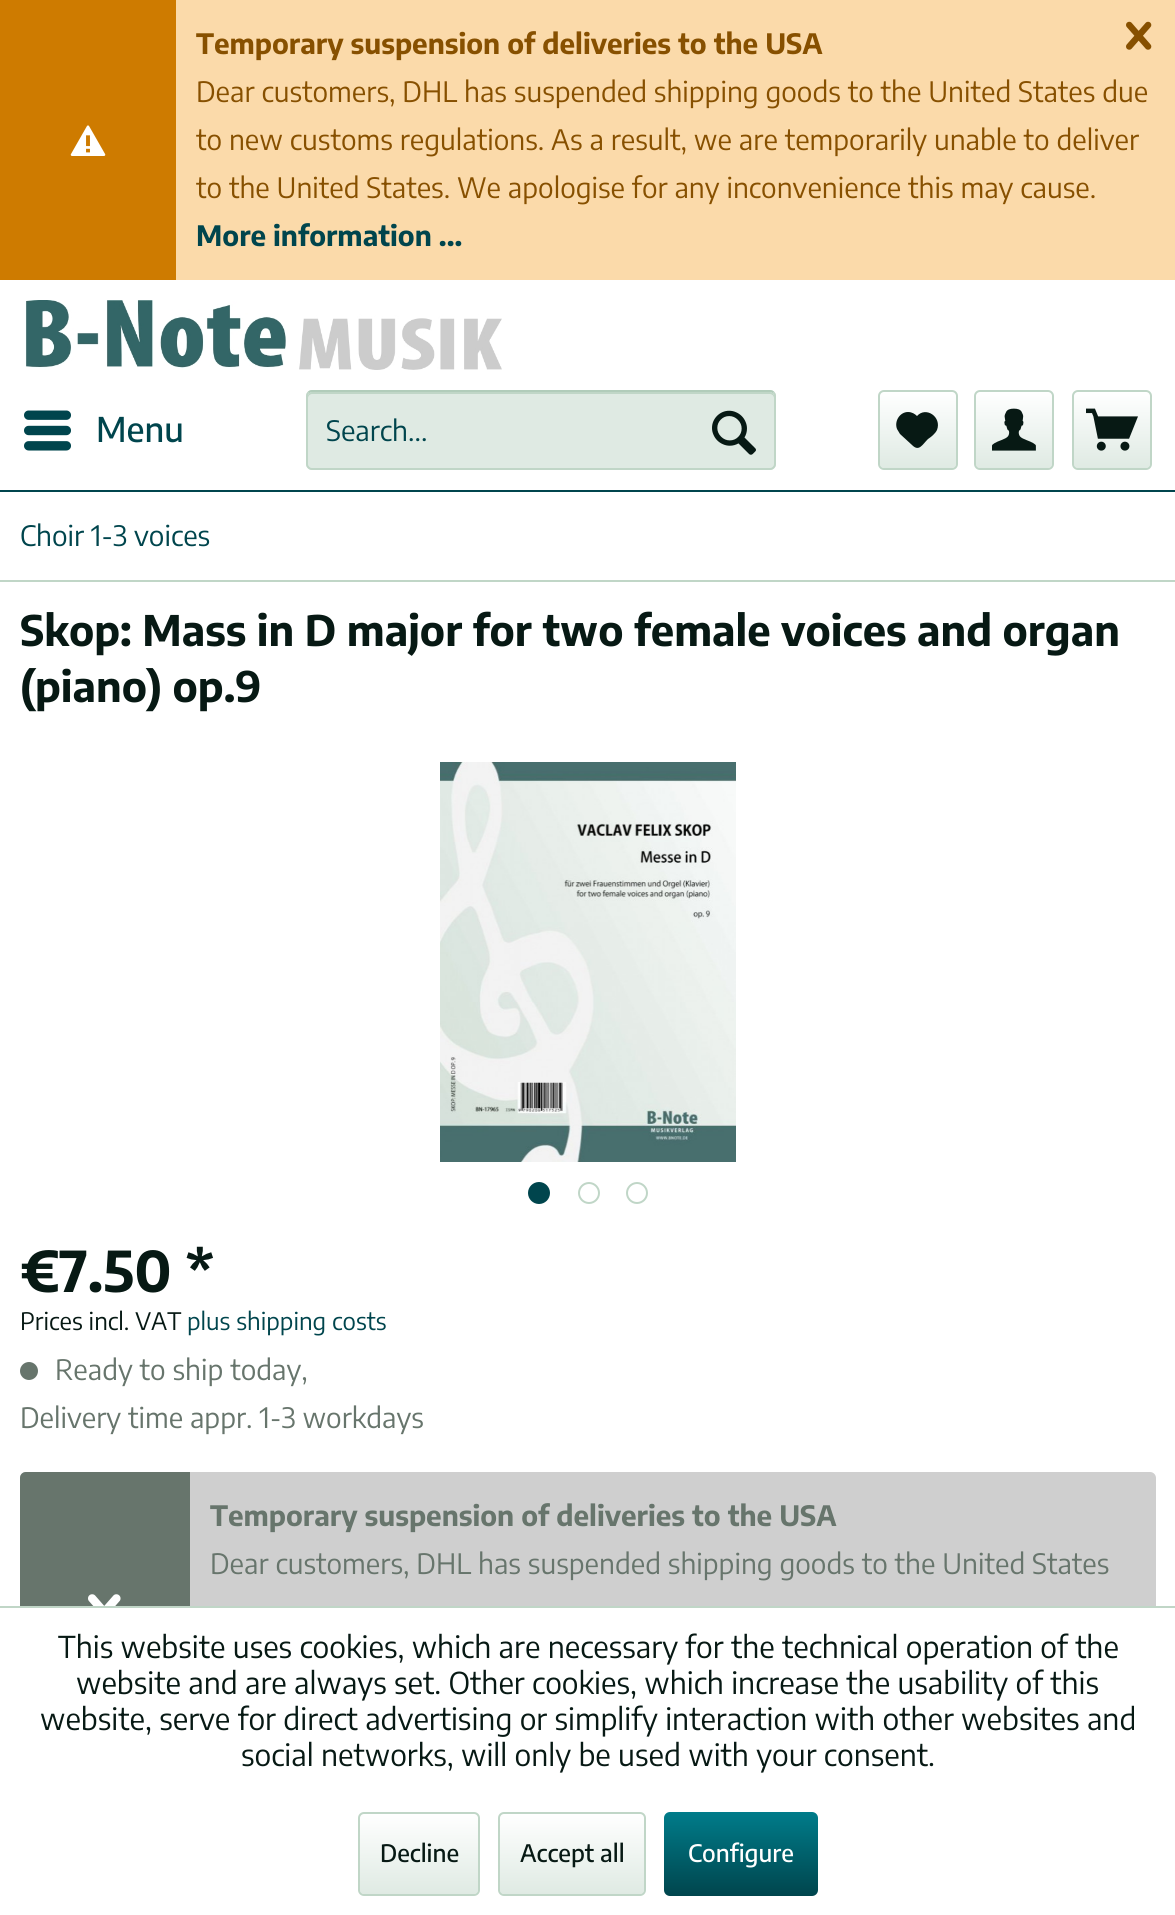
import math
import cairocffi as cairo

surface = cairo.ImageSurface(cairo.FORMAT_RGB24, 1175, 1915)
cr = cairo.Context(surface)
options = cairo.FontOptions()
options.set_hint_metrics(cairo.HINT_METRICS_OFF)
options.set_hint_style(cairo.HINT_STYLE_NONE)
cr.set_font_options(options)
cr.set_miter_limit(4)


def use_color(code):
    cr.set_source_rgb(*(v / 255 for v in bytes.fromhex(code[-6:])))


def round_rect(x, y, w, h, r):
    cr.new_sub_path()
    for i, (u, v) in enumerate([(x + w - r, y + h - r), (x + r, y + h - r), (x + r, y + r), (x + w - r, y + r)]):
        cr.arc(u, v, r, i * math.pi / 2, (i + 1) * math.pi / 2)
    cr.close_path()


def picture(path, x, y, w, h):
    cr.save()
    cr.set_source_surface(cairo.ImageSurface.create_from_png(path), x, y)
    cr.rectangle(x, y, w, h)
    cr.fill()
    cr.restore()


use_color("#ffffff")
cr.paint()
use_color("#fbdaaa")
cr.rectangle(176, 0, 999, 280)
cr.fill()
use_color("#ce7b00")
cr.rectangle(0, 0, 176, 280)
cr.fill()
picture("img1.png", 70, 125, 36, 31)
cr.select_font_face("Encode Sans", cairo.FONT_SLANT_NORMAL, cairo.FONT_WEIGHT_BOLD)
cr.set_font_size(28)
use_color("#875000")
cr.move_to(196, 54)
cr.show_text("Temporary suspension of deliveries to the USA")
picture("img2.png", 1126, 21, 26, 29)
cr.select_font_face("Encode Sans")
cr.move_to(196, 102)
cr.show_text("Dear customers, DHL has suspended shipping goods to the United States due")
cr.move_to(196, 150)
cr.show_text("to new customs regulations. As a result, we are temporarily unable to deliver")
cr.move_to(196, 198)
cr.show_text("to the United States. We apologise for any inconvenience this may cause.")
cr.select_font_face("Encode Sans", cairo.FONT_SLANT_NORMAL, cairo.FONT_WEIGHT_BOLD)
use_color("#00454d")
cr.move_to(196, 246)
cr.show_text("More information ...")
cr.rectangle(0, 490, 1175, 2)
cr.fill()
picture("img3.png", 25, 300, 477, 70)
picture("img4.png", 24, 410, 47, 41)
cr.select_font_face("Encode Sans Medium")
cr.set_font_size(34)
cr.move_to(96, 442)
cr.show_text("Menu")
use_color("#dfeae3")
round_rect(306, 390, 470, 80, 6)
cr.fill()
use_color("#c0d6c7")
cr.new_path()
cr.move_to(312, 394)
cr.line_to(770, 394)
cr.curve_to(772, 394, 774, 396, 774, 398)
cr.line_to(774, 396)
cr.curve_to(774, 394, 772, 392, 770, 392)
cr.line_to(312, 392)
cr.curve_to(310, 392, 308, 394, 308, 396)
cr.line_to(308, 398)
cr.curve_to(308, 396, 310, 394, 312, 394)
cr.close_path()
cr.fill()
cr.new_path()
cr.move_to(308.5, 392.5)
cr.curve_to(309.5, 391.5, 310.5, 391, 312, 391)
cr.line_to(770, 391)
cr.curve_to(771.5, 391, 772.5, 391.5, 773.5, 392.5)
use_color("#b1ccba")
cr.stroke()
cr.new_path()
cr.move_to(773.5, 392.5)
cr.curve_to(774.5, 393.5, 775, 394.5, 775, 396)
cr.line_to(775, 464)
cr.curve_to(775, 465.5, 774.5, 466.5, 773.5, 467.5)
cr.curve_to(772.5, 468.5, 771.5, 469, 770, 469)
cr.line_to(312, 469)
cr.curve_to(310.5, 469, 309.5, 468.5, 308.5, 467.5)
cr.curve_to(307.5, 466.5, 307, 465.5, 307, 464)
cr.line_to(307, 396)
cr.curve_to(307, 394.5, 307.5, 393.5, 308.5, 392.5)
use_color("#c0d6c7")
cr.stroke()
cr.select_font_face("Encode Sans")
cr.set_font_size(28)
use_color("#00454d")
cr.move_to(326, 441)
cr.show_text("Search...")
picture("img5.png", 712, 410, 44, 45)
gradient = cairo.LinearGradient(918, 392, 918, 468)
gradient.add_color_stop_rgba(0, 1, 1, 1, 1)
gradient.add_color_stop_rgba(1, 0.875, 0.918, 0.89, 1)
cr.set_source(gradient)
round_rect(880, 392, 76, 76, 4)
cr.fill()
round_rect(879, 391, 78, 78, 5)
use_color("#c0d6c7")
cr.stroke()
use_color("#071914")
cr.new_path()
cr.move_to(908, 412)
cr.curve_to(900, 412, 894, 421, 897, 429)
cr.line_to(900, 434)
cr.line_to(912, 445)
cr.curve_to(919, 452, 922, 445, 928, 439)
cr.curve_to(931, 437, 935, 434, 937, 430)
cr.curve_to(942, 417, 926, 406, 917, 416)
cr.curve_to(915, 414, 912, 412, 908, 412)
cr.close_path()
cr.fill()
gradient = cairo.LinearGradient(1014, 392, 1014, 468)
gradient.add_color_stop_rgba(0, 1, 1, 1, 1)
gradient.add_color_stop_rgba(1, 0.875, 0.918, 0.89, 1)
cr.set_source(gradient)
round_rect(976, 392, 76, 76, 4)
cr.fill()
round_rect(975, 391, 78, 78, 5)
use_color("#c0d6c7")
cr.stroke()
picture("img6.png", 992, 408, 44, 43)
gradient = cairo.LinearGradient(1112, 392, 1112, 468)
gradient.add_color_stop_rgba(0, 1, 1, 1, 1)
gradient.add_color_stop_rgba(1, 0.875, 0.918, 0.89, 1)
cr.set_source(gradient)
round_rect(1074, 392, 76, 76, 4)
cr.fill()
round_rect(1073, 391, 78, 78, 5)
use_color("#c0d6c7")
cr.stroke()
picture("img7.png", 1086, 408, 52, 43)
cr.rectangle(0, 580, 1175, 2)
cr.fill()
use_color("#00454d")
cr.move_to(20, 546)
cr.show_text("Choir 1-3 voices")
cr.select_font_face("Encode Sans", cairo.FONT_SLANT_NORMAL, cairo.FONT_WEIGHT_BOLD)
cr.set_font_size(42)
use_color("#071914")
cr.move_to(20, 646)
cr.show_text("Skop: Mass in D major for two female voices and organ")
cr.move_to(20, 702)
cr.show_text("(piano) op.9")
picture("img8.png", 440, 762, 296, 400)
use_color("#00454d")
cr.arc(539, 1193, 10, 0, 2 * math.pi)
cr.fill_preserve()
cr.stroke()
cr.arc(589, 1193, 10, 0, 2 * math.pi)
use_color("#c0d6c7")
cr.stroke()
cr.arc(637, 1193, 10, 0, 2 * math.pi)
cr.stroke()
cr.set_font_size(56)
use_color("#071914")
cr.move_to(20, 1292)
cr.show_text("€7.50 *")
cr.select_font_face("Encode Sans")
cr.set_font_size(24)
cr.move_to(20, 1330)
cr.show_text("Prices incl. VAT")
use_color("#00454d")
cr.move_to(187, 1330)
cr.show_text("plus shipping costs")
use_color("#67756c")
cr.new_path()
cr.arc(29, 1371, 9, 0, 2 * math.pi)
cr.fill()
cr.set_font_size(28)
cr.move_to(55, 1380)
cr.show_text("Ready to ship today,")
cr.move_to(20, 1428)
cr.show_text("Delivery time appr. 1-3 workdays")
use_color("#cfcfcf")
round_rect(20, 1472, 1136, 280, 6)
cr.fill()
use_color("#67756c")
cr.new_path()
cr.move_to(26, 1472)
cr.line_to(190, 1472)
cr.line_to(190, 1752)
cr.line_to(26, 1752)
cr.curve_to(22.5, 1752, 20, 1749.5, 20, 1746)
cr.line_to(20, 1478)
cr.curve_to(20, 1474.5, 22.5, 1472, 26, 1472)
cr.close_path()
cr.fill()
picture("img9.png", 88, 1594, 33, 12)
cr.select_font_face("Encode Sans", cairo.FONT_SLANT_NORMAL, cairo.FONT_WEIGHT_BOLD)
cr.move_to(210, 1526)
cr.show_text("Temporary suspension of deliveries to the USA")
cr.select_font_face("Encode Sans")
cr.move_to(210, 1574)
cr.show_text("Dear customers, DHL has suspended shipping goods to the United States")
use_color("#ffffff")
cr.rectangle(20, 1608, 1136, 144)
cr.fill()
use_color("#c0d6c7")
cr.rectangle(0, 1606, 1175, 2)
cr.fill()
cr.set_font_size(30)
use_color("#071914")
cr.move_to(58, 1658)
cr.show_text("This website uses cookies, which are necessary for the technical operation of the")
cr.move_to(76, 1694)
cr.show_text("website and are always set. Other cookies, which increase the usability of this")
cr.move_to(40, 1730)
cr.show_text("website, serve for direct advertising or simplify interaction with other websites and")
cr.move_to(241, 1766)
cr.show_text("social networks, will only be used with your consent.")
gradient = cairo.LinearGradient(419, 1814, 419, 1894)
gradient.add_color_stop_rgba(0, 1, 1, 1, 1)
gradient.add_color_stop_rgba(1, 0.875, 0.918, 0.89, 1)
cr.set_source(gradient)
round_rect(360, 1814, 118, 80, 4)
cr.fill()
round_rect(359, 1813, 120, 82, 5)
use_color("#c0d6c7")
cr.stroke()
cr.select_font_face("Encode Sans Medium")
cr.set_font_size(24)
use_color("#071914")
cr.move_to(380, 1862)
cr.show_text("Decline")
gradient = cairo.LinearGradient(572, 1814, 572, 1894)
gradient.add_color_stop_rgba(0, 1, 1, 1, 1)
gradient.add_color_stop_rgba(1, 0.875, 0.918, 0.89, 1)
cr.set_source(gradient)
round_rect(500, 1814, 144, 80, 4)
cr.fill()
round_rect(499, 1813, 146, 82, 5)
use_color("#c0d6c7")
cr.stroke()
use_color("#071914")
cr.move_to(520, 1862)
cr.show_text("Accept all")
gradient = cairo.LinearGradient(741, 1812, 741, 1896)
gradient.add_color_stop_rgba(0, 0, 0.486, 0.541, 1)
gradient.add_color_stop_rgba(1, 0, 0.271, 0.302, 1)
cr.set_source(gradient)
round_rect(664, 1812, 154, 84, 6)
cr.fill()
use_color("#ffffff")
cr.move_to(688, 1862)
cr.show_text("Configure")
surface.write_to_png("result.png")
